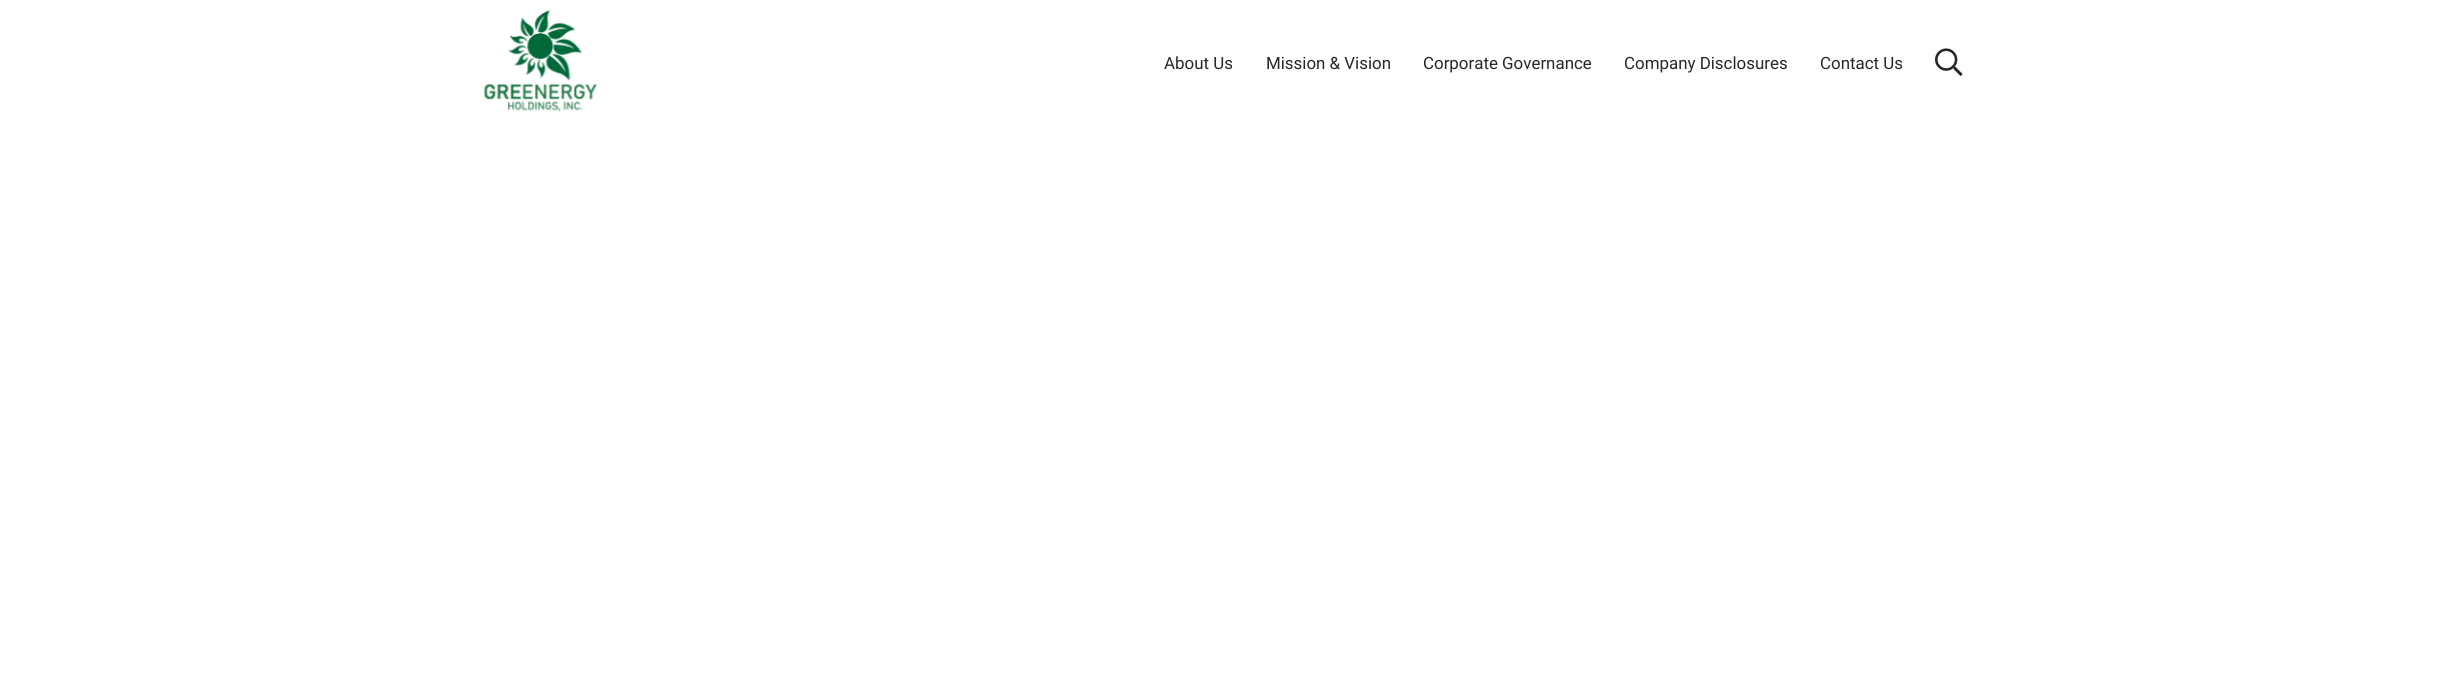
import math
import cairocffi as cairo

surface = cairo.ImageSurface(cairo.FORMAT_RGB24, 2443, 693)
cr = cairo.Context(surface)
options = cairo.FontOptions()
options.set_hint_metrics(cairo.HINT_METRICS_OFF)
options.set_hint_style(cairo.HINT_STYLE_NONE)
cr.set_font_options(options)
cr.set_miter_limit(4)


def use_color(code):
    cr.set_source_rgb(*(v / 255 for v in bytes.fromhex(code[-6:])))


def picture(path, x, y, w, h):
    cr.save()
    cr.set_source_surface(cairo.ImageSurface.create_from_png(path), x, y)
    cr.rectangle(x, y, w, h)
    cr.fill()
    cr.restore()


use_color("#ffffff")
cr.paint()
picture("img1.png", 484, 10, 113, 102)
cr.select_font_face("Roboto")
cr.set_font_size(16.9)
use_color("#25282b")
cr.move_to(1164, 69)
cr.show_text("About Us")
cr.move_to(1266, 69)
cr.show_text("Mission & Vision")
cr.move_to(1423, 69)
cr.show_text("Corporate Governance")
cr.move_to(1624, 69)
cr.show_text("Company Disclosures")
cr.move_to(1820, 69)
cr.show_text("Contact Us")
picture("img2.png", 1935, 48, 28, 28)
surface.write_to_png("result.png")
